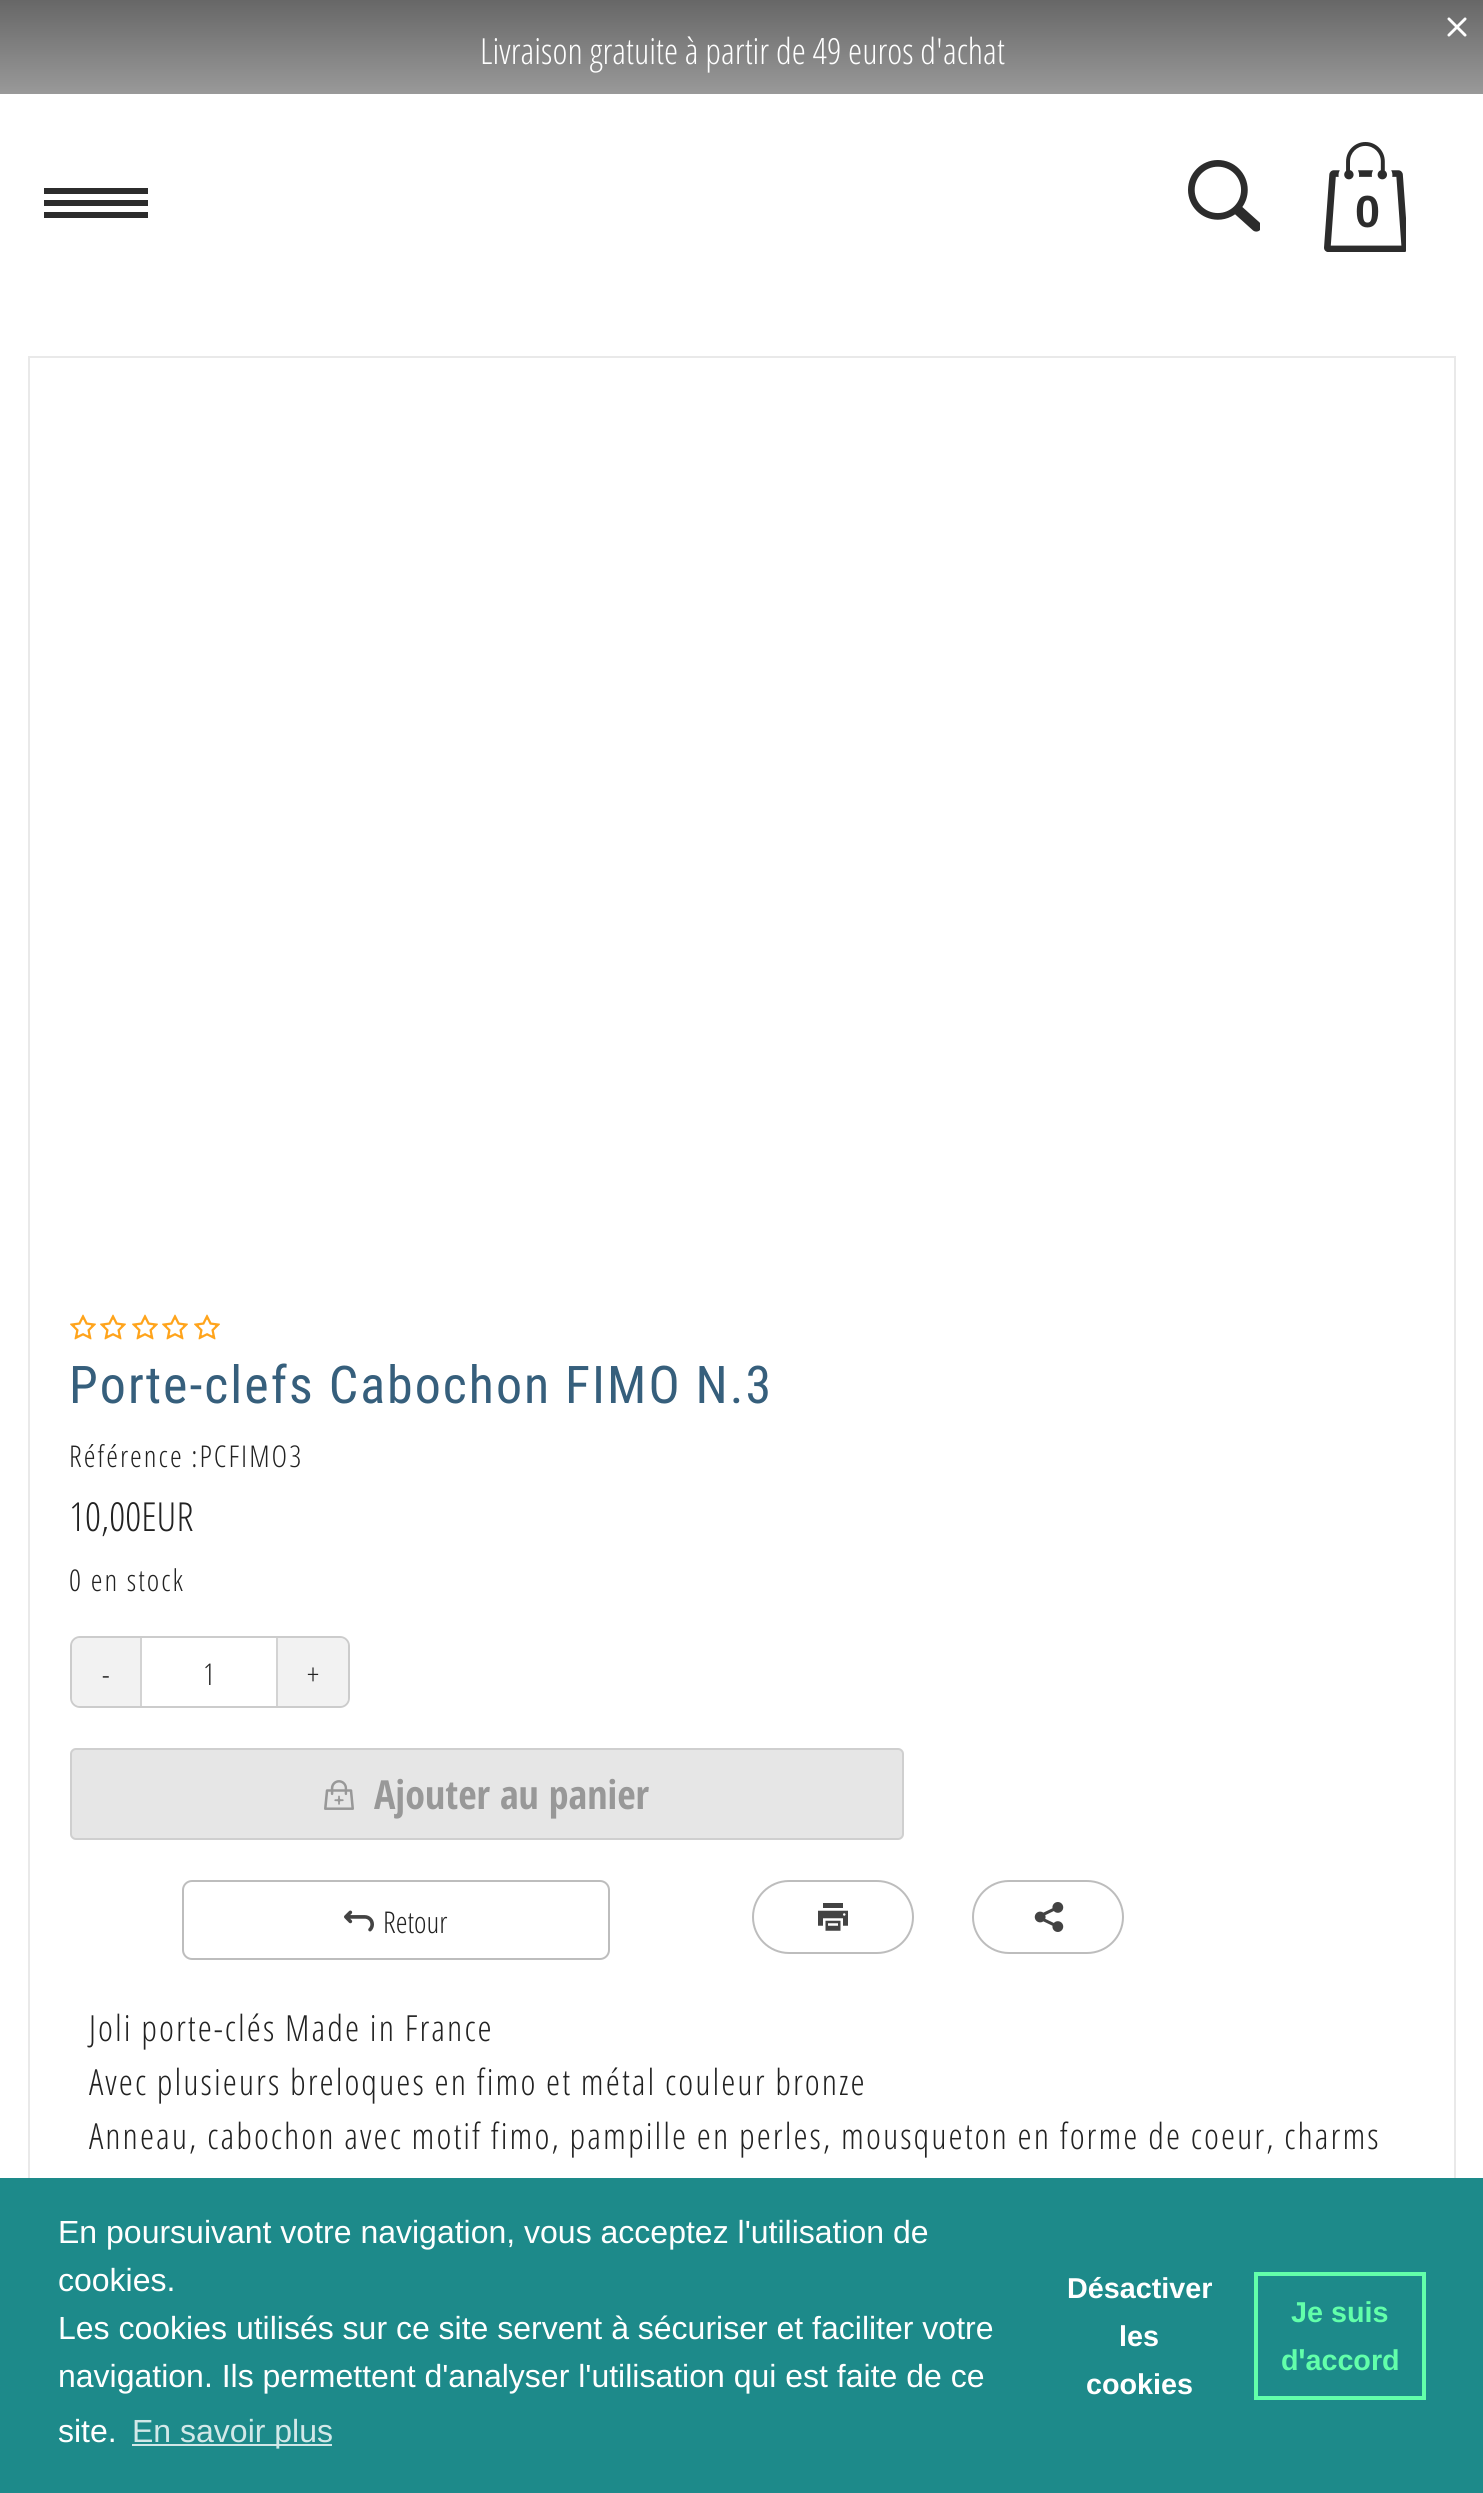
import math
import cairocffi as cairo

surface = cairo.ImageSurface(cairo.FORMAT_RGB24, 1483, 2493)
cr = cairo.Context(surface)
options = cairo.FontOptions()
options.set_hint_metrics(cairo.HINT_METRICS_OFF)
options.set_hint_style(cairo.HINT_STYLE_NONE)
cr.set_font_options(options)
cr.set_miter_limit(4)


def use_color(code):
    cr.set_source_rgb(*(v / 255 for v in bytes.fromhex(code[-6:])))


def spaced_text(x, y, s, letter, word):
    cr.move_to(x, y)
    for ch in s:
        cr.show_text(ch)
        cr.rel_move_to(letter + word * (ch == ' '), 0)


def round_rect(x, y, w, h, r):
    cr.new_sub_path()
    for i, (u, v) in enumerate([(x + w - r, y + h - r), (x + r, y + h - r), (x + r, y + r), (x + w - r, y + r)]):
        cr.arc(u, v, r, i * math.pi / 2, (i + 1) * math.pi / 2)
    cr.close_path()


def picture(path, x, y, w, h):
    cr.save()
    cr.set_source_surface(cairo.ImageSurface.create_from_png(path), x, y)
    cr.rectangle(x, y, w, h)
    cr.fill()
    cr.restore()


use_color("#ffffff")
cr.paint()
gradient = cairo.LinearGradient(742, -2, 742, 94)
gradient.add_color_stop_rgba(0, 0.4, 0.4, 0.4, 1)
gradient.add_color_stop_rgba(1, 0.6, 0.6, 0.6, 1)
cr.set_source(gradient)
cr.rectangle(0, 0, 1483, 94)
cr.fill()
picture("img1.png", 1447, 17, 20, 20)
cr.select_font_face("Open Sans Condensed Light")
cr.set_font_size(36)
use_color("#ffffff")
cr.move_to(480, 64)
cr.show_text("Livraison gratuite à partir de 49 euros d'achat")
use_color("#2c2c2c")
cr.rectangle(44, 200, 104, 6)
cr.fill()
cr.rectangle(44, 188, 104, 6)
cr.fill()
cr.rectangle(44, 212, 104, 6)
cr.fill()
picture("img2.png", 1188, 160, 72, 72)
picture("img3.png", 1324, 142, 82, 110)
cr.select_font_face("Liberation Sans", cairo.FONT_SLANT_NORMAL, cairo.FONT_WEIGHT_BOLD)
cr.set_font_size(45)
cr.move_to(1355, 227)
cr.show_text("0")
cr.rectangle(29, 357, 1426, 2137)
use_color("#e9e9e9")
cr.stroke()
picture("img4.png", 70, 1314, 26, 26)
picture("img4.png", 100, 1314, 26, 26)
picture("img4.png", 132, 1314, 26, 26)
picture("img4.png", 162, 1314, 26, 26)
picture("img4.png", 194, 1314, 26, 26)
cr.select_font_face("Roboto Condensed")
cr.set_font_size(52)
use_color("#365f7c")
spaced_text(69, 1403, "Porte-clefs Cabochon FIMO N.3", 2, 0)
cr.select_font_face("Open Sans Condensed Light")
cr.set_font_size(30)
use_color("#222222")
spaced_text(69, 1467, "Référence :PCFIMO3", 2, 0)
cr.set_font_size(40)
cr.move_to(69, 1531)
cr.show_text("10,00EUR")
cr.set_font_size(30)
spaced_text(69, 1591, "0 en stock", 2, 0)
round_rect(71, 1637, 278, 70, 9)
use_color("#cccccc")
cr.stroke()
cr.set_source_rgba(0.902, 0.902, 0.902, 0.5)
cr.new_path()
cr.move_to(80, 1638)
cr.line_to(140, 1638)
cr.line_to(140, 1706)
cr.line_to(80, 1706)
cr.curve_to(75.5, 1706, 72, 1702.5, 72, 1698)
cr.line_to(72, 1646)
cr.curve_to(72, 1641.5, 75.5, 1638, 80, 1638)
cr.close_path()
cr.fill()
use_color("#222222")
cr.move_to(102, 1685)
cr.show_text("-")
use_color("#d3d3d3")
cr.rectangle(276, 1638, 2, 68)
cr.fill()
cr.rectangle(140, 1638, 2, 68)
cr.fill()
use_color("#222222")
cr.move_to(203, 1685)
cr.show_text("1")
cr.set_source_rgba(0.902, 0.902, 0.902, 0.5)
cr.new_path()
cr.move_to(278, 1638)
cr.line_to(340, 1638)
cr.curve_to(344.5, 1638, 348, 1641.5, 348, 1646)
cr.line_to(348, 1698)
cr.curve_to(348, 1702.5, 344.5, 1706, 340, 1706)
cr.line_to(278, 1706)
cr.close_path()
cr.fill()
use_color("#222222")
cr.move_to(307, 1685)
cr.show_text("+")
use_color("#e6e6e6")
round_rect(70, 1748, 834, 92, 6)
cr.fill()
round_rect(71, 1749, 832, 90, 5)
cr.set_source_rgba(0, 0, 0, 0.1)
cr.stroke()
picture("img5.png", 324, 1780, 30, 30)
cr.select_font_face("Open Sans Condensed", cairo.FONT_SLANT_NORMAL, cairo.FONT_WEIGHT_BOLD)
cr.set_font_size(40)
use_color("#989898")
cr.move_to(374, 1809)
cr.show_text("Ajouter au panier")
round_rect(183, 1881, 426, 78, 9)
use_color("#bdbdbd")
cr.stroke()
picture("img6.png", 344, 1910, 30, 22)
cr.select_font_face("Open Sans Condensed Light")
cr.set_font_size(30)
use_color("#222222")
cr.move_to(383, 1933)
cr.show_text("Retour")
round_rect(753, 1881, 160, 72, 36)
use_color("#bdbdbd")
cr.stroke()
picture("img7.png", 818, 1903, 30, 28)
round_rect(973, 1881, 150, 72, 36)
cr.stroke()
picture("img8.png", 1034, 1902, 30, 30)
cr.set_font_size(36)
use_color("#222222")
spaced_text(89, 2041, "Joli porte-clés Made in France", 2, 0)
spaced_text(89, 2095, "Avec plusieurs breloques en fimo et métal couleur bronze", 2, 0)
spaced_text(89, 2149, "Anneau, cabochon avec motif fimo, pampille en perles, mousqueton en forme de coeur, charms", 2, 0)
use_color("#1d8a8a")
cr.rectangle(0, 2178, 1483, 315)
cr.fill()
cr.select_font_face("Liberation Sans")
cr.set_font_size(32)
use_color("#ffffff")
cr.move_to(58, 2243)
cr.show_text("En poursuivant votre navigation, vous acceptez l'utilisation de")
cr.move_to(58, 2291)
cr.show_text("cookies.")
cr.move_to(58, 2339)
cr.show_text("Les cookies utilisés sur ce site servent à sécuriser et faciliter votre")
cr.move_to(58, 2387)
cr.show_text("navigation. Ils permettent d'analyser l'utilisation qui est faite de ce")
cr.move_to(58, 2442)
cr.show_text("site.")
use_color("#d2e8e8")
cr.rectangle(132, 2444, 200, 2)
cr.fill()
cr.move_to(132, 2442)
cr.show_text("En savoir plus")
cr.select_font_face("Liberation Sans", cairo.FONT_SLANT_NORMAL, cairo.FONT_WEIGHT_BOLD)
cr.set_font_size(28.75)
use_color("#ffffff")
cr.move_to(1067, 2298)
cr.show_text("Désactiver")
cr.move_to(1119, 2346)
cr.show_text("les")
cr.move_to(1086, 2394)
cr.show_text("cookies")
cr.rectangle(1256, 2274, 168, 124)
use_color("#62ffaa")
cr.set_line_width(4)
cr.stroke()
cr.move_to(1291, 2322)
cr.show_text("Je suis")
cr.move_to(1281, 2370)
cr.show_text("dꞌaccord")
surface.write_to_png("result.png")
